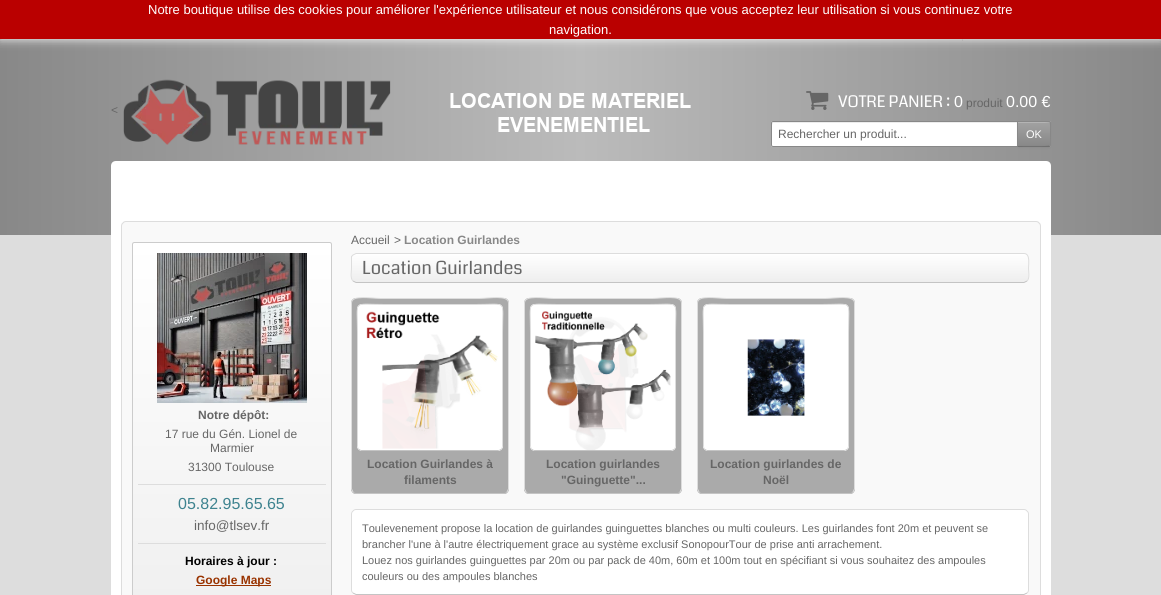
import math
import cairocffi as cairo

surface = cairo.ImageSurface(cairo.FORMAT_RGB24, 1161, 595)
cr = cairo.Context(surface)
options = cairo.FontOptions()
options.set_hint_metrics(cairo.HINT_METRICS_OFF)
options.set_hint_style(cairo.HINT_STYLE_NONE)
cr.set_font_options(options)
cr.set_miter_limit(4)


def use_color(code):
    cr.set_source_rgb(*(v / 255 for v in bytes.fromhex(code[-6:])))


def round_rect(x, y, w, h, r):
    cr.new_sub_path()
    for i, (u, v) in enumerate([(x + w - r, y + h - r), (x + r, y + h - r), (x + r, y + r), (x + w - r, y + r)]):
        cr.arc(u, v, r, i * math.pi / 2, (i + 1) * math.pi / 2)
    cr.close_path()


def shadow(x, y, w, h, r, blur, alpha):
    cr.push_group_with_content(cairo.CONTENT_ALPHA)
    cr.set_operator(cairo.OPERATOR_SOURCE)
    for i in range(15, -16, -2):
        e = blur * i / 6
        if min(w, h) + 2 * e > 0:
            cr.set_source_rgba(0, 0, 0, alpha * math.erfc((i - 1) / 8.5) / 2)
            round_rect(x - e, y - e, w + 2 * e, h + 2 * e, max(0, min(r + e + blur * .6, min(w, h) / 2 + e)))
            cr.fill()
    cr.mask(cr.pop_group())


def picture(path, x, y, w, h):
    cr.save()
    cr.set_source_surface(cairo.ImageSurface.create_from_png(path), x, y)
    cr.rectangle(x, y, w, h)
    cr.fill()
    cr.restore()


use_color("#dddddd")
cr.paint()
gradient = cairo.LinearGradient(0, 135, 1161, 135)
gradient.add_color_stop_rgba(0, 0.533, 0.533, 0.533, 1)
gradient.add_color_stop_rgba(0.5, 0.733, 0.733, 0.733, 1)
gradient.add_color_stop_rgba(1, 0.533, 0.533, 0.533, 1)
cr.set_source(gradient)
cr.rectangle(0, 39, 1161, 196)
cr.fill()
use_color("#888888")
cr.rectangle(962, 39, 1, 2)
cr.fill()
use_color("#ffffff")
shadow(0, 0, 1161, 39, 0, 5, 1)
use_color("#ba0000")
cr.rectangle(0, 0, 1161, 39)
cr.fill()
cr.select_font_face("Liberation Sans")
cr.set_font_size(13)
use_color("#ffffff")
cr.move_to(148, 14)
cr.show_text("Notre boutique utilise des cookies pour améliorer l'expérience utilisateur et nous considérons que vous acceptez leur utilisation si vous continuez votre")
cr.move_to(549, 34)
cr.show_text("navigation.")
cr.set_font_size(12)
use_color("#666666")
cr.move_to(111, 114)
cr.show_text("<")
picture("img1.png", 123, 79, 568, 66)
picture("img2.png", 806, 91, 23, 19)
cr.select_font_face("Coda")
cr.set_font_size(16)
use_color("#ffffff")
cr.move_to(838, 107)
cr.show_text("VOTRE PANIER :")
cr.select_font_face("Liberation Sans")
cr.move_to(954, 107)
cr.show_text("0")
cr.set_font_size(12)
use_color("#666666")
cr.move_to(966, 107)
cr.show_text("produit")
cr.set_font_size(16)
use_color("#ffffff")
cr.move_to(1006, 107)
cr.show_text("0.00 €")
round_rect(771, 121, 280, 26, 2)
cr.fill()
use_color("#ececec")
cr.new_path()
cr.move_to(773, 123)
cr.line_to(1049, 123)
cr.line_to(1050, 125)
cr.curve_to(1050, 124, 1050, 122, 1049, 122)
cr.line_to(773, 122)
cr.curve_to(771, 122, 772, 125, 772, 125)
cr.close_path()
cr.fill()
round_rect(771.5, 121.5, 279, 25, 1.5)
use_color("#888888")
cr.set_line_width(1)
cr.stroke()
cr.set_font_size(12)
use_color("#666666")
cr.move_to(778, 138)
cr.show_text("Rechercher un produit...")
use_color("#000000")
shadow(1017, 122, 34, 26, 2, 1, 0.05)
gradient = cairo.LinearGradient(1034, 122, 1034, 146)
gradient.add_color_stop_rgba(0, 0.635, 0.635, 0.635, 1)
gradient.add_color_stop_rgba(1, 0.533, 0.533, 0.533, 1)
cr.set_source(gradient)
cr.new_path()
cr.move_to(1018, 122)
cr.line_to(1049, 122)
cr.curve_to(1049.5, 122, 1050, 122.5, 1050, 123)
cr.line_to(1050, 145)
cr.curve_to(1050, 145.5, 1049.5, 146, 1049, 146)
cr.line_to(1018, 146)
cr.close_path()
cr.fill()
use_color("#b4b4b4")
cr.new_path()
cr.move_to(1018, 123)
cr.line_to(1049, 123)
cr.curve_to(1050, 123, 1050, 123, 1050, 124)
cr.line_to(1050, 123)
cr.curve_to(1050, 122.5, 1049.5, 122, 1049, 122)
cr.line_to(1018, 122)
cr.close_path()
cr.fill()
use_color("#888888")
cr.new_path()
cr.move_to(1017, 121)
cr.line_to(1018, 122)
cr.curve_to(1021.5, 122, 1049, 121.5, 1049.5, 122.5)
cr.line_to(1050.5, 121.5)
cr.line_to(1049, 121)
cr.close_path()
cr.fill()
cr.new_path()
cr.move_to(1051, 145)
cr.line_to(1051, 123)
cr.curve_to(1051, 122.5, 1051, 122, 1050.5, 121.5)
cr.line_to(1049.5, 122.5)
cr.curve_to(1050.5, 123, 1050.5, 145, 1049.5, 145.5)
cr.line_to(1050.5, 146.5)
cr.close_path()
cr.fill()
use_color("#6f6f6f")
cr.new_path()
cr.move_to(1049, 147)
cr.line_to(1050.5, 146.5)
cr.line_to(1049.5, 145.5)
cr.curve_to(1049, 146.5, 1021.5, 146, 1018, 146)
cr.line_to(1017, 147)
cr.close_path()
cr.fill()
use_color("#888888")
cr.new_path()
cr.move_to(1017, 121)
cr.line_to(1017, 147)
cr.line_to(1018, 146)
cr.line_to(1018, 122)
cr.close_path()
cr.fill()
cr.set_font_size(11)
use_color("#ffffff")
cr.move_to(1026, 138)
cr.show_text("OK")
cr.new_path()
cr.move_to(116, 161)
cr.line_to(1046, 161)
cr.curve_to(1049, 161, 1051, 163, 1051, 166)
cr.line_to(1051, 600)
cr.line_to(111, 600)
cr.line_to(111, 166)
cr.curve_to(111, 163, 113, 161, 116, 161)
cr.close_path()
cr.fill()
use_color("#f9f9f9")
round_rect(121, 221, 920, 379, 5)
cr.fill()
cr.new_path()
cr.move_to(123, 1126)
cr.curve_to(122, 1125.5, 121.5, 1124, 121.5, 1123)
cr.line_to(121.5, 226)
cr.curve_to(121.5, 225, 122, 223.5, 123, 223)
cr.curve_to(123.5, 222, 125, 221.5, 126, 221.5)
cr.line_to(1036, 221.5)
cr.curve_to(1037, 221.5, 1038.5, 222, 1039, 223)
cr.curve_to(1040, 223.5, 1040.5, 225, 1040.5, 226)
cr.line_to(1040.5, 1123)
cr.curve_to(1040.5, 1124, 1040, 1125.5, 1039, 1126)
use_color("#dddddd")
cr.stroke()
gradient = cairo.LinearGradient(232, 243, 232, 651)
gradient.add_color_stop_rgba(0, 1, 1, 1, 1)
gradient.add_color_stop_rgba(1, 0.933, 0.933, 0.933, 1)
cr.set_source(gradient)
round_rect(133, 243, 198, 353, 1)
cr.fill()
cr.new_path()
cr.move_to(133, 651)
cr.line_to(132.5, 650)
cr.line_to(132.5, 244)
cr.line_to(133, 243)
cr.line_to(134, 242.5)
cr.line_to(330, 242.5)
cr.line_to(331, 243)
cr.line_to(331.5, 244)
cr.line_to(331.5, 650)
cr.line_to(331, 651)
use_color("#cccccc")
cr.stroke()
picture("img3.png", 157, 253, 150, 150)
cr.select_font_face("Liberation Sans", cairo.FONT_SLANT_NORMAL, cairo.FONT_WEIGHT_BOLD)
cr.set_font_size(12)
use_color("#666666")
cr.move_to(198, 419)
cr.show_text("Notre dépôt:")
cr.select_font_face("Liberation Sans")
cr.move_to(165, 438)
cr.show_text("17 rue du Gén. Lionel de")
cr.move_to(210, 452)
cr.show_text("Marmier")
cr.move_to(188, 471)
cr.show_text("31300 Toulouse")
use_color("#dddddd")
cr.rectangle(138, 484, 188, 1)
cr.fill()
cr.set_font_size(16)
use_color("#3e838f")
cr.move_to(178, 509)
cr.show_text("05.82.95.65.65")
cr.set_font_size(13.5)
use_color("#666666")
cr.move_to(194, 530)
cr.show_text("info@tlsev.fr")
use_color("#dddddd")
cr.rectangle(138, 543, 188, 1)
cr.fill()
cr.select_font_face("Liberation Sans", cairo.FONT_SLANT_NORMAL, cairo.FONT_WEIGHT_BOLD)
cr.set_font_size(12)
use_color("#000000")
cr.move_to(185, 565)
cr.show_text("Horaires à jour :")
use_color("#993300")
cr.rectangle(196, 585, 75, 1)
cr.fill()
cr.move_to(196, 584)
cr.show_text("Google Maps")
cr.select_font_face("Liberation Sans")
use_color("#666666")
cr.move_to(351, 244)
cr.show_text("Accueil")
cr.move_to(394, 244)
cr.show_text(">")
cr.select_font_face("Liberation Sans", cairo.FONT_SLANT_NORMAL, cairo.FONT_WEIGHT_BOLD)
use_color("#888888")
cr.move_to(404, 244)
cr.show_text("Location Guirlandes")
gradient = cairo.LinearGradient(690, 254, 690, 282)
gradient.add_color_stop_rgba(0, 1, 1, 1, 1)
gradient.add_color_stop_rgba(1, 0.933, 0.933, 0.933, 1)
cr.set_source(gradient)
round_rect(352, 254, 676, 28, 4)
cr.fill()
cr.new_path()
cr.move_to(1027, 281)
cr.line_to(1024, 282.5)
cr.line_to(356, 282.5)
cr.line_to(353, 281)
use_color("#c4c4c4")
cr.stroke()
cr.new_path()
cr.move_to(353, 281)
cr.curve_to(350, 278.5, 351.5, 271, 351.5, 268)
cr.line_to(351.5, 256.5)
cr.line_to(353, 255)
cr.line_to(356, 253.5)
cr.line_to(1024, 253.5)
cr.curve_to(1030.5, 253.5, 1028.5, 264.5, 1028.5, 268)
cr.curve_to(1028.5, 271, 1030, 278.5, 1027, 281)
use_color("#dddddd")
cr.stroke()
cr.select_font_face("Coda")
cr.set_font_size(18)
use_color("#666666")
cr.move_to(362, 274)
cr.show_text("Location Guirlandes")
use_color("#aaaaaa")
round_rect(351, 298, 158, 196, 5)
cr.fill()
cr.new_path()
cr.move_to(507, 492)
cr.curve_to(506.5, 493, 505, 493.5, 504, 493.5)
cr.line_to(356, 493.5)
cr.curve_to(355, 493.5, 353.5, 493, 353, 492)
use_color("#c4c4c4")
cr.stroke()
cr.new_path()
cr.move_to(353, 492)
cr.line_to(351.5, 489)
cr.line_to(351.5, 303)
cr.curve_to(351.5, 294.5, 372, 298.5, 380.5, 298.5)
cr.line_to(479.5, 298.5)
cr.curve_to(488, 298.5, 508.5, 294.5, 508.5, 303)
cr.line_to(508.5, 489)
cr.line_to(507, 492)
use_color("#dddddd")
cr.stroke()
use_color("#ffffff")
round_rect(357, 304, 146, 147, 5)
cr.fill()
cr.new_path()
cr.move_to(501, 449)
cr.line_to(498, 450.5)
cr.line_to(361.5, 450.5)
cr.line_to(359, 449)
use_color("#c4c4c4")
cr.stroke()
cr.new_path()
cr.move_to(359, 449)
cr.line_to(357.5, 446)
cr.line_to(357.5, 332)
cr.curve_to(357.5, 299, 352, 304.5, 384.5, 304.5)
cr.line_to(475.5, 304.5)
cr.curve_to(508, 304.5, 502.5, 299, 502.5, 332)
cr.line_to(502.5, 446)
cr.line_to(501, 449)
use_color("#dddddd")
cr.stroke()
use_color("#ffffff")
round_rect(358, 305, 144, 145, 4)
cr.fill()
picture("img4.png", 366, 311, 132, 138)
cr.select_font_face("Liberation Sans", cairo.FONT_SLANT_NORMAL, cairo.FONT_WEIGHT_BOLD)
cr.set_font_size(12)
use_color("#666666")
cr.move_to(367, 468)
cr.show_text("Location Guirlandes à")
cr.move_to(404, 484)
cr.show_text("filaments")
use_color("#aaaaaa")
round_rect(524, 298, 158, 196, 5)
cr.fill()
cr.new_path()
cr.move_to(680, 492)
cr.curve_to(679.5, 493, 678, 493.5, 677, 493.5)
cr.line_to(529, 493.5)
cr.curve_to(528, 493.5, 526.5, 493, 526, 492)
use_color("#c4c4c4")
cr.stroke()
cr.new_path()
cr.move_to(526, 492)
cr.line_to(524.5, 489)
cr.line_to(524.5, 303)
cr.curve_to(524.5, 294.5, 545, 298.5, 553.5, 298.5)
cr.line_to(652.5, 298.5)
cr.curve_to(661, 298.5, 681.5, 294.5, 681.5, 303)
cr.line_to(681.5, 489)
cr.line_to(680, 492)
use_color("#dddddd")
cr.stroke()
use_color("#ffffff")
round_rect(530, 304, 146, 147, 5)
cr.fill()
cr.new_path()
cr.move_to(674, 449)
cr.line_to(671, 450.5)
cr.line_to(534.5, 450.5)
cr.line_to(532, 449)
use_color("#c4c4c4")
cr.stroke()
cr.new_path()
cr.move_to(532, 449)
cr.line_to(530.5, 446)
cr.line_to(530.5, 332)
cr.curve_to(530.5, 299, 525, 304.5, 557.5, 304.5)
cr.line_to(648.5, 304.5)
cr.curve_to(681, 304.5, 675.5, 299, 675.5, 332)
cr.line_to(675.5, 446)
cr.line_to(674, 449)
use_color("#dddddd")
cr.stroke()
use_color("#ffffff")
round_rect(531, 305, 144, 145, 4)
cr.fill()
picture("img5.png", 535, 311, 136, 139)
use_color("#666666")
cr.move_to(546, 468)
cr.show_text("Location guirlandes")
cr.move_to(561, 484)
cr.show_text("\"Guinguette\"...")
use_color("#aaaaaa")
round_rect(697, 298, 158, 196, 5)
cr.fill()
cr.new_path()
cr.move_to(853, 492)
cr.curve_to(852.5, 493, 851, 493.5, 850, 493.5)
cr.line_to(702, 493.5)
cr.curve_to(701, 493.5, 699.5, 493, 699, 492)
use_color("#c4c4c4")
cr.stroke()
cr.new_path()
cr.move_to(699, 492)
cr.line_to(697.5, 489)
cr.line_to(697.5, 303)
cr.curve_to(697.5, 294.5, 718, 298.5, 726.5, 298.5)
cr.line_to(825.5, 298.5)
cr.curve_to(834, 298.5, 854.5, 294.5, 854.5, 303)
cr.line_to(854.5, 489)
cr.line_to(853, 492)
use_color("#dddddd")
cr.stroke()
use_color("#ffffff")
round_rect(703, 304, 146, 147, 5)
cr.fill()
cr.new_path()
cr.move_to(847, 449)
cr.line_to(844, 450.5)
cr.line_to(707.5, 450.5)
cr.line_to(705, 449)
use_color("#c4c4c4")
cr.stroke()
cr.new_path()
cr.move_to(705, 449)
cr.line_to(703.5, 446)
cr.line_to(703.5, 332)
cr.curve_to(703.5, 299, 698, 304.5, 730.5, 304.5)
cr.line_to(821.5, 304.5)
cr.curve_to(854, 304.5, 848.5, 299, 848.5, 332)
cr.line_to(848.5, 446)
cr.line_to(847, 449)
use_color("#dddddd")
cr.stroke()
use_color("#ffffff")
round_rect(704, 305, 144, 145, 4)
cr.fill()
picture("img6.png", 747, 339, 58, 77)
use_color("#666666")
cr.move_to(710, 468)
cr.show_text("Location guirlandes de")
cr.move_to(763, 484)
cr.show_text("Noël")
use_color("#ffffff")
round_rect(351, 509, 678, 86, 5)
cr.fill()
cr.new_path()
cr.move_to(1027, 593)
cr.line_to(1024, 594.5)
cr.line_to(356, 594.5)
cr.line_to(353, 593)
use_color("#c4c4c4")
cr.stroke()
cr.new_path()
cr.move_to(353, 593)
cr.curve_to(352, 592.5, 351.5, 591, 351.5, 590)
cr.line_to(351.5, 514)
cr.curve_to(351.5, 513, 352, 511.5, 353, 511)
cr.curve_to(353.5, 510, 355, 509.5, 356, 509.5)
cr.line_to(1024, 509.5)
cr.curve_to(1025, 509.5, 1026.5, 510, 1027, 511)
cr.curve_to(1028, 511.5, 1028.5, 513, 1028.5, 514)
cr.line_to(1028.5, 590)
cr.curve_to(1028.5, 591, 1028, 592.5, 1027, 593)
use_color("#dddddd")
cr.stroke()
cr.select_font_face("Liberation Sans")
cr.set_font_size(11)
use_color("#666666")
cr.move_to(362, 532)
cr.show_text("Toulevenement propose la location de guirlandes guinguettes blanches ou multi couleurs. Les guirlandes font 20m et peuvent se")
cr.move_to(362, 548)
cr.show_text("brancher l'une à l'autre électriquement grace au système exclusif SonopourTour de prise anti arrachement.")
cr.move_to(362, 564)
cr.show_text("Louez nos guirlandes guinguettes par 20m ou par pack de 40m, 60m et 100m tout en spécifiant si vous souhaitez des ampoules")
cr.move_to(362, 580)
cr.show_text("couleurs ou des ampoules blanches")
surface.write_to_png("result.png")
